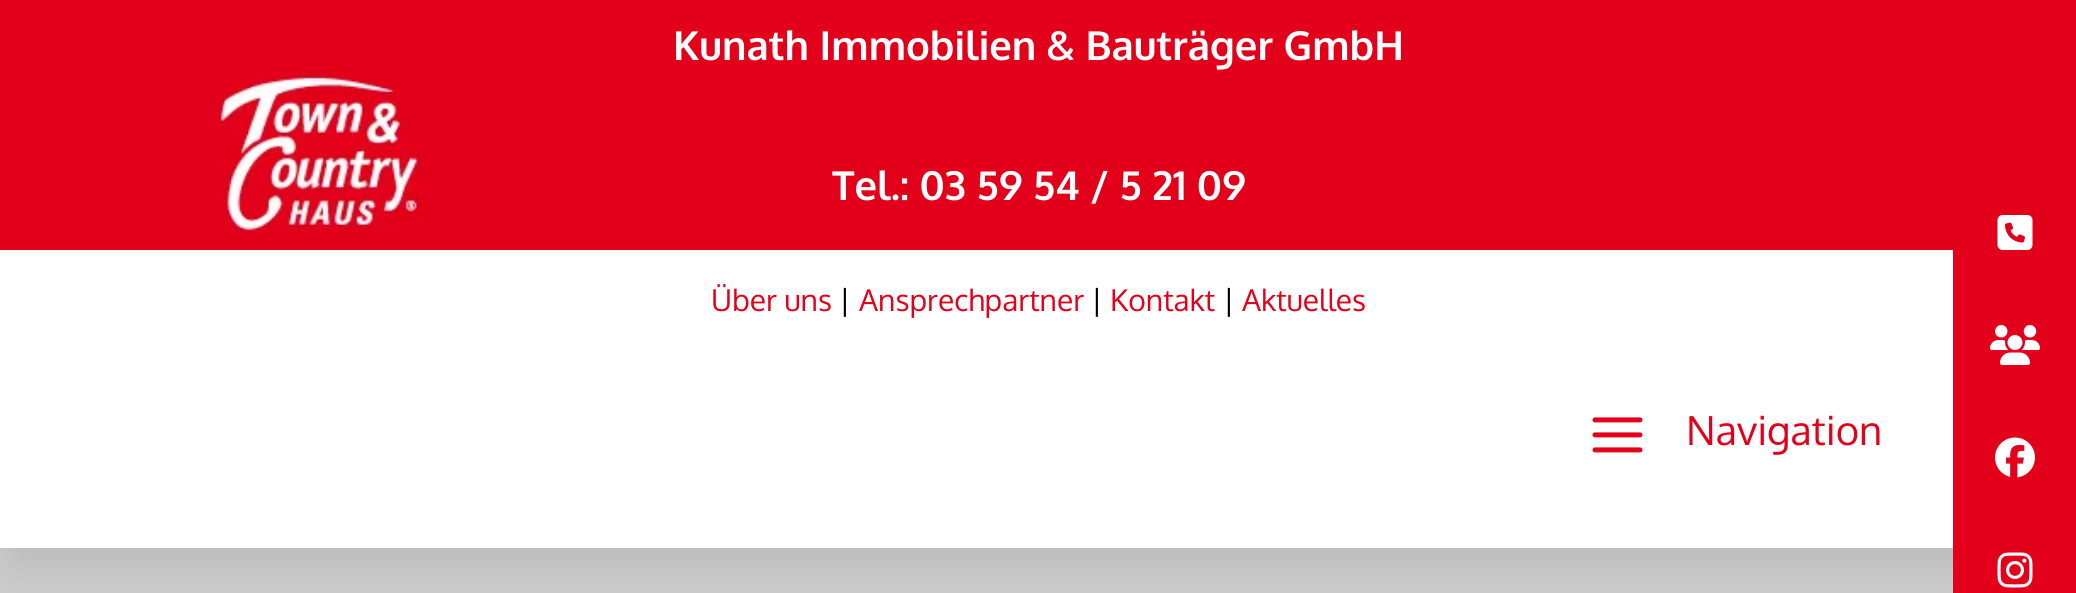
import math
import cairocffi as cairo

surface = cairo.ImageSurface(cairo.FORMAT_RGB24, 2076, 593)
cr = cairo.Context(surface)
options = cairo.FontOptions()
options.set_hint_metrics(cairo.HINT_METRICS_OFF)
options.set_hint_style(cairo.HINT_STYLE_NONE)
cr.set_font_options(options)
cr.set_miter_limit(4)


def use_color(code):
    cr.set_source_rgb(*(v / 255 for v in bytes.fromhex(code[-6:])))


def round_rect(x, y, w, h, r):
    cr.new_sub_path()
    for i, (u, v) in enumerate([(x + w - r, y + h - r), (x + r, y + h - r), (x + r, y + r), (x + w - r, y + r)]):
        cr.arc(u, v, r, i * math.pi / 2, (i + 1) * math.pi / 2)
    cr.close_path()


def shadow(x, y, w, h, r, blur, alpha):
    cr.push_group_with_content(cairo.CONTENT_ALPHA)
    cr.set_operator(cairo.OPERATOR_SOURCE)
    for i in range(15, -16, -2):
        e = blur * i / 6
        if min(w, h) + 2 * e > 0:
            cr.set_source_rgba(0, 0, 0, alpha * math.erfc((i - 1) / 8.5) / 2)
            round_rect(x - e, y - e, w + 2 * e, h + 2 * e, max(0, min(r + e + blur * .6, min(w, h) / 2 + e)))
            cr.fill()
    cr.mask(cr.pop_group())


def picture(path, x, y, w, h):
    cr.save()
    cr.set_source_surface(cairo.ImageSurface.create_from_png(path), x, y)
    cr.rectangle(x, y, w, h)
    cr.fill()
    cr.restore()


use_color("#cccccc")
cr.paint()
use_color("#000000")
shadow(15, 265, 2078, 298, 0, 22.5, 0.1)
use_color("#e2001a")
cr.rectangle(0, 0, 2076, 250)
cr.fill()
cr.select_font_face("Oxygen", cairo.FONT_SLANT_NORMAL, cairo.FONT_WEIGHT_BOLD)
cr.set_font_size(40)
use_color("#ffffff")
cr.move_to(673, 60)
cr.show_text("Kunath Immobilien & Bauträger GmbH")
picture("img1.png", 219, 66, 207, 166)
cr.move_to(832, 200)
cr.show_text("Tel.: 03 59 54 / 5 21 09")
cr.rectangle(0, 250, 1953, 298)
cr.fill()
cr.select_font_face("Oxygen")
cr.set_font_size(30)
use_color("#e2001a")
cr.move_to(711, 311)
cr.show_text("Über uns")
use_color("#000000")
cr.move_to(839, 311)
cr.show_text("|")
use_color("#e2001a")
cr.move_to(859, 311)
cr.show_text("Ansprechpartner")
use_color("#000000")
cr.move_to(1091, 311)
cr.show_text("|")
use_color("#e2001a")
cr.move_to(1110, 311)
cr.show_text("Kontakt")
use_color("#000000")
cr.move_to(1223, 311)
cr.show_text("|")
use_color("#e2001a")
cr.move_to(1242, 311)
cr.show_text("Aktuelles")
picture("img2.png", 1592, 417, 51, 36)
cr.set_font_size(40)
cr.move_to(1686, 445)
cr.show_text("Navigation")
cr.rectangle(1953, 250, 123, 343)
cr.fill()
picture("img3.png", 1997, 215, 36, 35)
picture("img4.png", 1990, 325, 50, 40)
picture("img5.png", 1995, 437, 40, 41)
picture("img6.png", 1997, 552, 36, 36)
surface.write_to_png("result.png")
